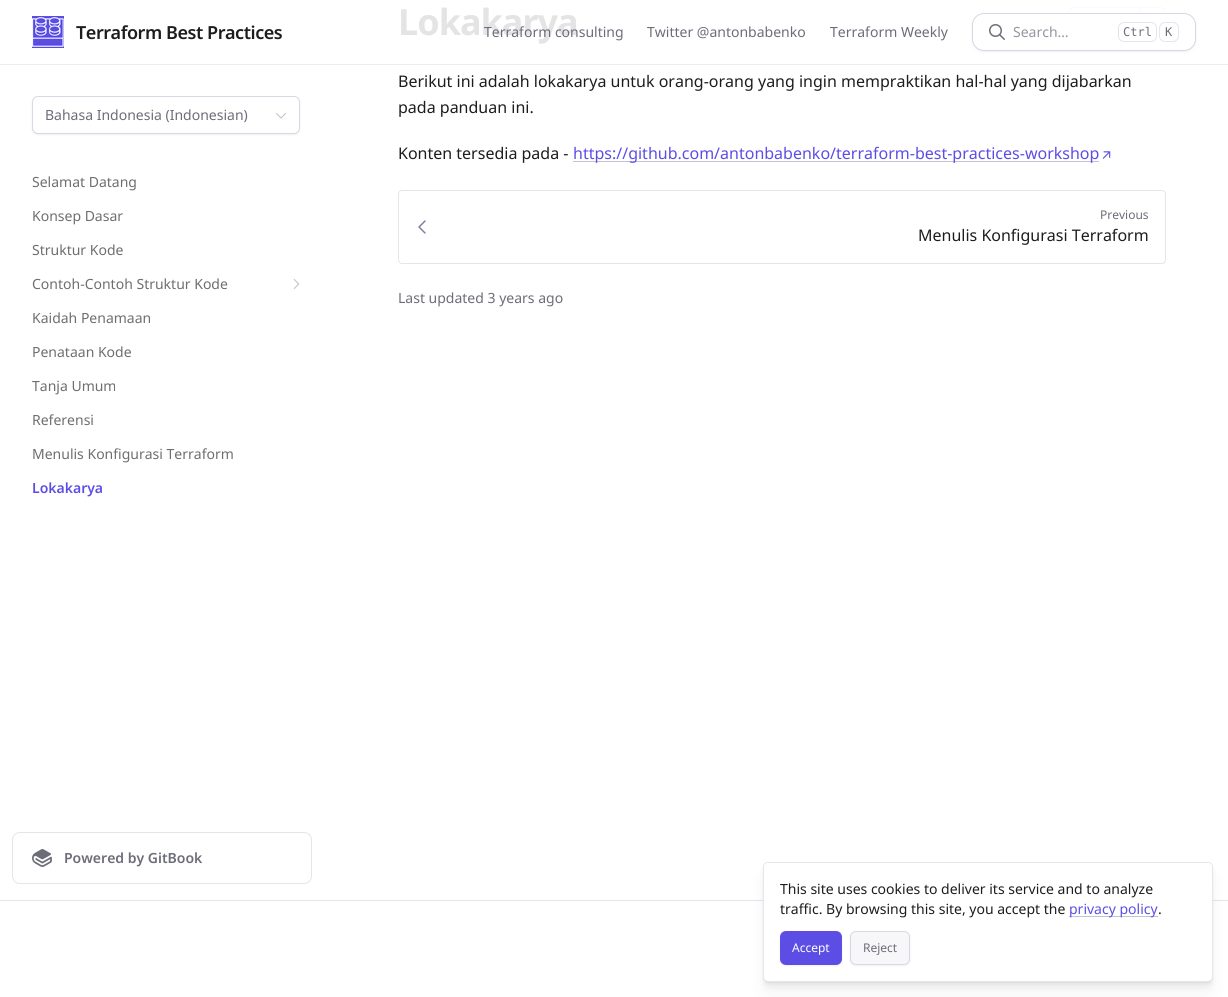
import math
import cairocffi as cairo

surface = cairo.ImageSurface(cairo.FORMAT_RGB24, 1228, 997)
cr = cairo.Context(surface)
options = cairo.FontOptions()
options.set_hint_metrics(cairo.HINT_METRICS_OFF)
options.set_hint_style(cairo.HINT_STYLE_NONE)
cr.set_font_options(options)
cr.set_miter_limit(4)


def use_color(code):
    cr.set_source_rgb(*(v / 255 for v in bytes.fromhex(code[-6:])))


def spaced_text(x, y, s, letter, word):
    cr.move_to(x, y)
    for ch in s:
        cr.show_text(ch)
        cr.rel_move_to(letter + word * (ch == ' '), 0)


def round_rect(x, y, w, h, r):
    cr.new_sub_path()
    for i, (u, v) in enumerate([(x + w - r, y + h - r), (x + r, y + h - r), (x + r, y + r), (x + w - r, y + r)]):
        cr.arc(u, v, r, i * math.pi / 2, (i + 1) * math.pi / 2)
    cr.close_path()


def shadow(x, y, w, h, r, blur, alpha):
    cr.push_group_with_content(cairo.CONTENT_ALPHA)
    cr.set_operator(cairo.OPERATOR_SOURCE)
    for i in range(15, -16, -2):
        e = blur * i / 6
        if min(w, h) + 2 * e > 0:
            cr.set_source_rgba(0, 0, 0, alpha * math.erfc((i - 1) / 8.5) / 2)
            round_rect(x - e, y - e, w + 2 * e, h + 2 * e, max(0, min(r + e + blur * .6, min(w, h) / 2 + e)))
            cr.fill()
    cr.mask(cr.pop_group())


def picture(path, x, y, w, h):
    cr.save()
    cr.set_source_surface(cairo.ImageSurface.create_from_png(path), x, y)
    cr.rectangle(x, y, w, h)
    cr.fill()
    cr.restore()


use_color("#ffffff")
cr.paint()
use_color("#d7d8e2")
shadow(32, 97, 268, 38, 6, 1, 0.4)
use_color("#ffffff")
round_rect(32.5, 96.5, 267, 37, 5.5)
cr.fill_preserve()
use_color("#d7d8e2")
cr.set_line_width(1)
cr.stroke()
cr.select_font_face("Noto Sans")
cr.set_font_size(14)
use_color("#6c6d79")
cr.move_to(45, 120)
cr.show_text("Bahasa Indonesia (Indonesian)")
picture("img1.png", 276, 113, 10, 6)
use_color("#6e6e70")
cr.move_to(32, 187)
cr.show_text("Selamat Datang")
cr.move_to(32, 221)
cr.show_text("Konsep Dasar")
cr.move_to(32, 255)
cr.show_text("Struktur Kode")
cr.move_to(32, 289)
cr.show_text("Contoh-Contoh Struktur Kode")
picture("img2.png", 293, 279, 7, 10)
cr.move_to(32, 323)
cr.show_text("Kaidah Penamaan")
cr.move_to(32, 357)
cr.show_text("Penataan Kode")
cr.move_to(32, 391)
cr.show_text("Tanja Umum")
cr.move_to(32, 425)
cr.show_text("Referensi")
cr.move_to(32, 459)
cr.show_text("Menulis Konfigurasi Terraform")
cr.select_font_face("Noto Sans SemiBold")
use_color("#5c4ee5")
cr.move_to(32, 493)
cr.show_text("Lokakarya")
round_rect(12.5, 832.5, 299, 51, 7.5)
use_color("#e4e5ed")
cr.stroke()
picture("img3.png", 32, 849, 20, 18)
use_color("#6c6d79")
cr.move_to(64, 863)
cr.show_text("Powered by GitBook")
cr.select_font_face("Noto Sans", cairo.FONT_SLANT_NORMAL, cairo.FONT_WEIGHT_BOLD)
cr.set_font_size(36)
use_color("#e4e4e4")
spaced_text(398, 35, "Lokakarya", -1, 0)
cr.new_path()
cr.move_to(1074, 7.5)
cr.line_to(1140.5, 7.5)
cr.line_to(1140.5, 36.5)
cr.line_to(1074, 36.5)
cr.curve_to(1071, 36.5, 1068.5, 34, 1068.5, 31)
cr.line_to(1068.5, 13)
cr.curve_to(1068.5, 10, 1071, 7.5, 1074, 7.5)
cr.close_path()
use_color("#fafafc")
cr.stroke()
cr.set_fill_rule(cairo.FILL_RULE_EVEN_ODD)
cr.new_path()
cr.move_to(1141, 7)
cr.line_to(1160, 7)
cr.curve_to(1163.5, 7, 1166, 9.5, 1166, 13)
cr.line_to(1166, 31)
cr.curve_to(1166, 34.5, 1163.5, 37, 1160, 37)
cr.line_to(1141, 37)
cr.close_path()
cr.move_to(1141, 8)
cr.line_to(1160, 8)
cr.curve_to(1163, 8, 1165, 10, 1165, 13)
cr.line_to(1165, 31)
cr.curve_to(1165, 34, 1163, 36, 1160, 36)
cr.line_to(1141, 36)
cr.close_path()
cr.fill()
cr.select_font_face("Noto Sans")
cr.set_font_size(16)
use_color("#1d1d1f")
cr.move_to(398, 87)
cr.show_text("Berikut ini adalah lokakarya untuk orang-orang yang ingin mempraktikan hal-hal yang dijabarkan")
cr.move_to(398, 113)
cr.show_text("pada panduan ini.")
cr.move_to(398, 159)
cr.show_text("Konten tersedia pada -")
use_color("#c1c3d9")
cr.rectangle(573, 161, 526, 1)
cr.fill()
use_color("#5c4ee5")
cr.move_to(573, 159)
cr.show_text("https://github.com/antonbabenko/terraform-best-practices-workshop")
picture("img4.png", 1102, 151, 9, 8)
round_rect(398.5, 190.5, 767, 73, 3.5)
use_color("#e4e5ed")
cr.stroke()
picture("img5.png", 418, 220, 8, 14)
cr.set_font_size(12)
use_color("#6c6d79")
cr.move_to(1100, 219)
cr.show_text("Previous")
cr.set_font_size(16)
use_color("#1d1d1f")
cr.move_to(918, 241)
cr.show_text("Menulis Konfigurasi Terraform")
cr.set_font_size(14)
use_color("#6c6d79")
cr.move_to(398, 303)
cr.show_text("Last updated 3 years ago")
use_color("#ededed")
cr.rectangle(0, 64, 1228, 1)
cr.fill()
picture("img6.png", 32, 16, 32, 32)
cr.select_font_face("Noto Sans SemiBold")
cr.set_font_size(18)
use_color("#1d1d1f")
spaced_text(76, 39, "Terraform Best Practices", -0.45, 0)
cr.select_font_face("Noto Sans")
cr.set_font_size(14)
use_color("#6c6d79")
cr.move_to(484, 37)
cr.show_text("Terraform consulting")
cr.move_to(647, 37)
cr.show_text("Twitter @antonbabenko")
cr.move_to(830, 37)
cr.show_text("Terraform Weekly")
use_color("#d7d8e2")
shadow(972, 14, 224, 38, 12, 1, 0.4)
use_color("#ffffff")
round_rect(972.5, 13.5, 223, 37, 11.5)
cr.fill_preserve()
use_color("#d7d8e2")
cr.stroke()
picture("img7.png", 989, 24, 16, 16)
use_color("#95969f")
cr.move_to(1013, 37)
cr.show_text("Search…")
round_rect(1118.5, 22.5, 38, 19, 5.5)
use_color("#e4e5ed")
cr.stroke()
cr.select_font_face("DejaVu Sans Mono")
cr.set_font_size(12)
use_color("#6c6d79")
cr.move_to(1123, 36)
cr.show_text("Ctrl")
round_rect(1159.5, 22.5, 19, 19, 5.5)
use_color("#e4e5ed")
cr.stroke()
use_color("#6c6d79")
cr.move_to(1165, 36)
cr.show_text("K")
use_color("#e4e5ed")
cr.rectangle(0, 900, 1228, 1)
cr.fill()
use_color("#000000")
shadow(764, 877, 448, 118, 4, 11, 0.04)
shadow(764, 869, 448, 118, 4, 3.5, 0.05)
shadow(764, 866, 448, 118, 4, 1.5, 0.05)
shadow(764, 864, 448, 118, 4, 0.5, 0.09)
round_rect(763.5, 862.5, 449, 119, 4.5)
use_color("#e4e5ed")
cr.stroke()
use_color("#ffffff")
round_rect(764, 863, 448, 118, 4)
cr.fill()
cr.select_font_face("Noto Sans")
cr.set_font_size(14)
use_color("#1d1d1f")
cr.move_to(780, 894)
cr.show_text("This site uses cookies to deliver its service and to analyze")
cr.move_to(780, 914)
cr.show_text("traffic. By browsing this site, you accept the")
use_color("#c1c3d9")
cr.rectangle(1069, 916, 89, 1)
cr.fill()
use_color("#5c4ee5")
cr.move_to(1069, 914)
cr.show_text("privacy policy")
use_color("#1d1d1f")
cr.move_to(1158, 914)
cr.show_text(".")
use_color("#d7d8e2")
shadow(780, 932, 62, 34, 6, 1, 0.4)
use_color("#5c4ee5")
round_rect(780, 931, 62, 34, 6)
cr.fill()
cr.set_font_size(12)
use_color("#ffffff")
cr.move_to(792, 952)
cr.show_text("Accept")
use_color("#d7d8e2")
shadow(850, 932, 60, 34, 6, 1, 0.4)
use_color("#f7f7fa")
round_rect(850.5, 931.5, 59, 33, 5.5)
cr.fill_preserve()
use_color("#d7d8e2")
cr.stroke()
use_color("#6c6d79")
cr.move_to(863, 952)
cr.show_text("Reject")
surface.write_to_png("result.png")
